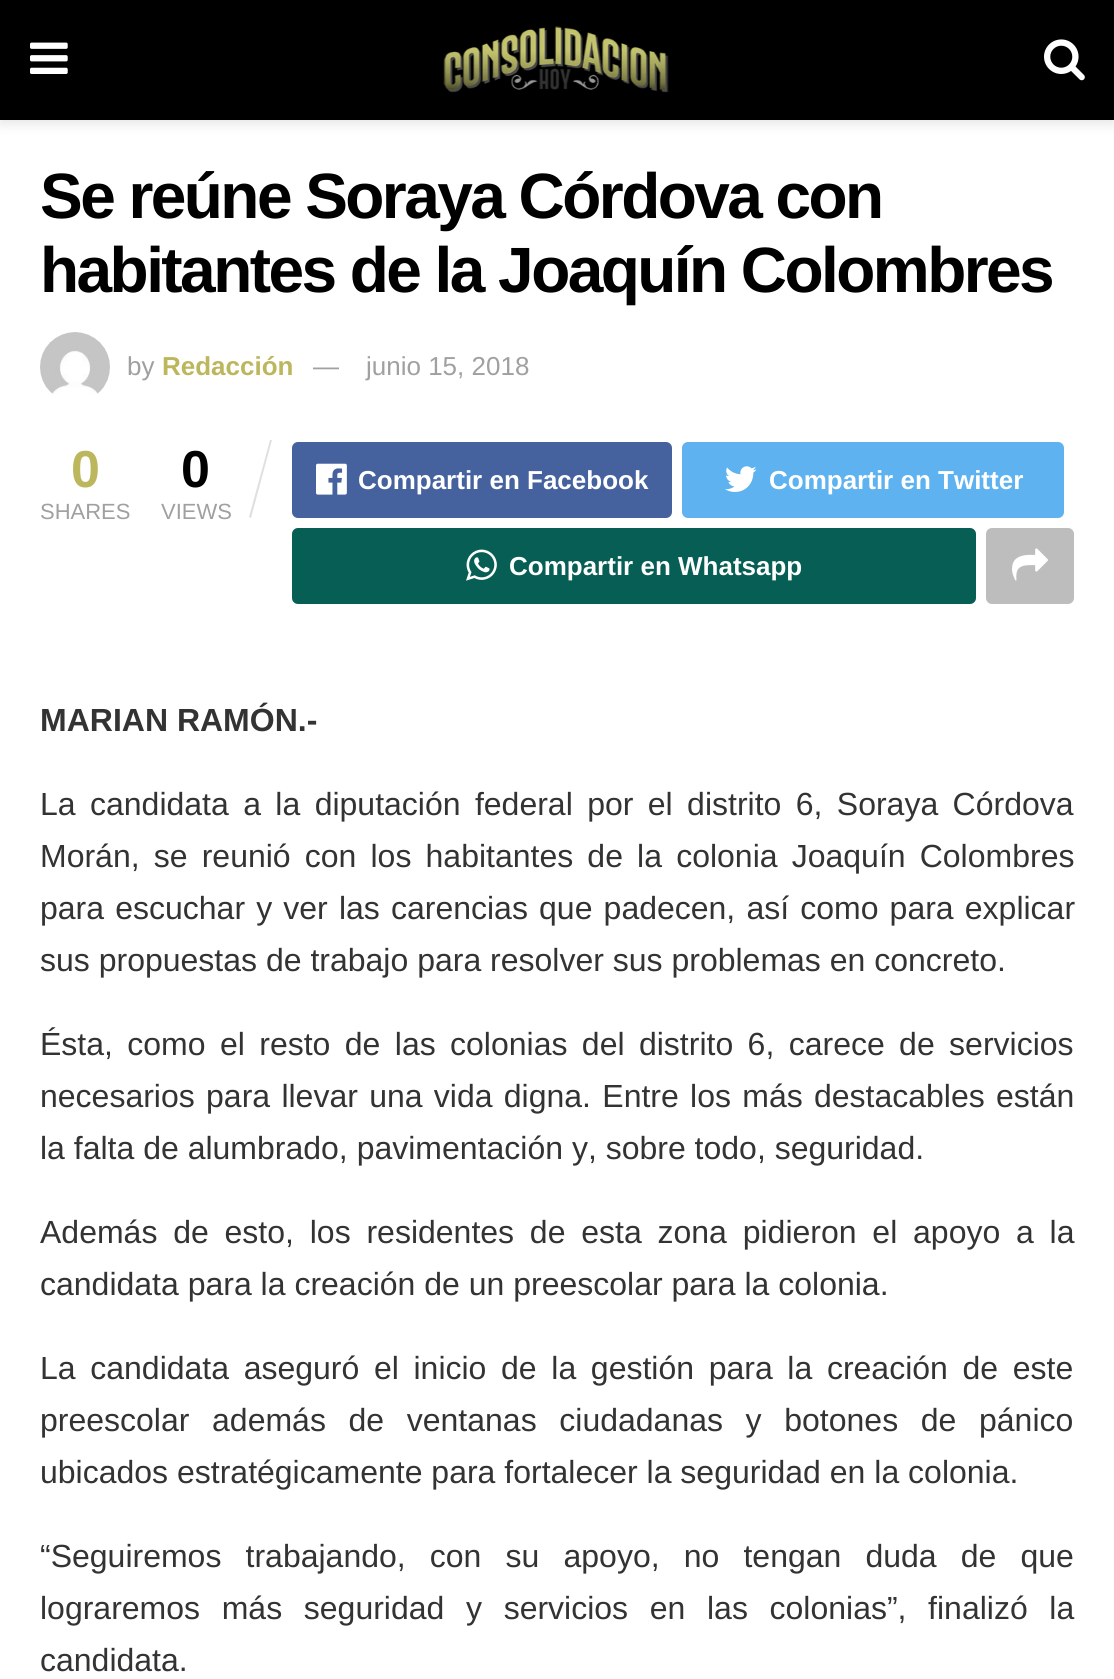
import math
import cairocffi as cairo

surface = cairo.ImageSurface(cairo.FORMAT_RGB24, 1114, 1679)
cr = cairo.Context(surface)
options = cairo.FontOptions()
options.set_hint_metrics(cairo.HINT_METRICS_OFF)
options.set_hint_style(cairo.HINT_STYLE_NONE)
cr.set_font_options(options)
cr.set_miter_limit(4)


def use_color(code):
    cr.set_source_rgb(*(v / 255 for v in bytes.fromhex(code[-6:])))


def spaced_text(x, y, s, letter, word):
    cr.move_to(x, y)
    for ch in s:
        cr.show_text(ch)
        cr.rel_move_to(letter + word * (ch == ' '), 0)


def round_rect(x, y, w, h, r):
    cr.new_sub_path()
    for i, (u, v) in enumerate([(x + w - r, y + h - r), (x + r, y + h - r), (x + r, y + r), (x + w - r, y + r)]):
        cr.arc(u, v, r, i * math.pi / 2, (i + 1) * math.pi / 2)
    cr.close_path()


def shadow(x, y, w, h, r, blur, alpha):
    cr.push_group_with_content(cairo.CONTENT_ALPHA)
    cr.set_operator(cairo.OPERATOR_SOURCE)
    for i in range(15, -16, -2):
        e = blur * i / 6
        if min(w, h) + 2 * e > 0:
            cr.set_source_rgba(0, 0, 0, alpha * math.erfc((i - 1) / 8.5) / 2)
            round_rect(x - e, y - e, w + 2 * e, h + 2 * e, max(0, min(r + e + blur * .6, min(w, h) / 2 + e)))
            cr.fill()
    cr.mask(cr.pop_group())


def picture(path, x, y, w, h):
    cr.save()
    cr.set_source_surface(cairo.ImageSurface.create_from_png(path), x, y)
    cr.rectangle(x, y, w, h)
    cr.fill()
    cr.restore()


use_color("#ffffff")
cr.paint()
use_color("#000000")
shadow(0, 4, 1114, 120, 0, 6, 0.1)
use_color("#000000")
cr.rectangle(0, 0, 1114, 120)
cr.fill()
picture("img1.png", 30, 42, 38, 32)
picture("img2.png", 443, 26, 226, 67)
picture("img3.png", 1044, 39, 41, 42)
cr.select_font_face("Liberation Sans", cairo.FONT_SLANT_NORMAL, cairo.FONT_WEIGHT_BOLD)
cr.set_font_size(64)
spaced_text(40, 218, "Se reúne Soraya Córdova con", -2.55, 0)
spaced_text(40, 292, "habitantes de la Joaquín Colombres", -2.55, 0)
picture("img4.png", 40, 332, 70, 62)
cr.select_font_face("Liberation Sans")
cr.set_font_size(26)
use_color("#a0a0a0")
cr.move_to(127, 375)
cr.show_text("by")
cr.select_font_face("Liberation Sans", cairo.FONT_SLANT_NORMAL, cairo.FONT_WEIGHT_BOLD)
use_color("#bcb65c")
cr.move_to(162, 375)
cr.show_text("Redacción")
cr.select_font_face("Liberation Sans")
use_color("#a0a0a0")
cr.move_to(313, 375)
cr.show_text("—")
cr.move_to(366, 375)
cr.show_text("junio 15, 2018")
cr.select_font_face("Liberation Sans", cairo.FONT_SLANT_NORMAL, cairo.FONT_WEIGHT_BOLD)
cr.set_font_size(52)
use_color("#bcb65c")
cr.move_to(71, 487)
cr.show_text("0")
cr.select_font_face("Liberation Sans")
cr.set_font_size(22)
use_color("#a0a0a0")
cr.move_to(40, 519)
cr.show_text("SHARES")
cr.select_font_face("Liberation Sans", cairo.FONT_SLANT_NORMAL, cairo.FONT_WEIGHT_BOLD)
cr.set_font_size(52)
use_color("#000000")
cr.move_to(181, 487)
cr.show_text("0")
use_color("#e0e0e0")
cr.new_path()
cr.move_to(270, 440)
cr.line_to(272, 440)
cr.line_to(251, 518)
cr.line_to(249, 517)
cr.close_path()
cr.fill()
cr.select_font_face("Liberation Sans")
cr.set_font_size(22)
use_color("#a0a0a0")
cr.move_to(161, 519)
cr.show_text("VIEWS")
use_color("#45629f")
round_rect(292, 442, 380, 76, 6)
cr.fill()
picture("img5.png", 316, 463, 31, 32)
cr.select_font_face("Liberation Sans", cairo.FONT_SLANT_NORMAL, cairo.FONT_WEIGHT_BOLD)
cr.set_font_size(26)
use_color("#ffffff")
cr.move_to(358, 489)
cr.show_text("Compartir en Facebook")
use_color("#5eb2ef")
round_rect(682, 442, 382, 76, 6)
cr.fill()
picture("img6.png", 725, 466, 32, 26)
use_color("#ffffff")
cr.move_to(769, 489)
cr.show_text("Compartir en Twitter")
use_color("#075e54")
round_rect(292, 528, 684, 76, 6)
cr.fill()
picture("img7.png", 466, 549, 31, 32)
use_color("#ffffff")
cr.move_to(509, 575)
cr.show_text("Compartir en Whatsapp")
use_color("#bdbdbd")
round_rect(986, 528, 88, 76, 6)
cr.fill()
picture("img8.png", 1012, 548, 36, 33)
cr.set_font_size(32)
use_color("#333333")
cr.move_to(40, 731)
cr.show_text("MARIAN RAMÓN.-")
cr.select_font_face("Liberation Sans")
spaced_text(40, 815, "La candidata a la diputación federal por el distrito 6, Soraya Córdova", 0, 5.5)
spaced_text(40, 867, "Morán, se reunió con los habitantes de la colonia Joaquín Colombres", 0, 5.25)
spaced_text(40, 919, "para escuchar y ver las carencias que padecen, así como para explicar", 0, 2.25)
cr.move_to(40, 971)
cr.show_text("sus propuestas de trabajo para resolver sus problemas en concreto.")
spaced_text(40, 1055, "Ésta, como el resto de las colonias del distrito 6, carece de servicios", 0, 5.5)
spaced_text(40, 1107, "necesarios para llevar una vida digna. Entre los más destacables están", 0, 2.4)
cr.move_to(40, 1159)
cr.show_text("la falta de alumbrado, pavimentación y, sobre todo, seguridad.")
spaced_text(40, 1243, "Además de esto, los residentes de esta zona pidieron el apoyo a la", 0, 6.9)
cr.move_to(40, 1295)
cr.show_text("candidata para la creación de un preescolar para la colonia.")
spaced_text(40, 1379, "La candidata aseguró el inicio de la gestión para la creación de este", 0, 5.75)
spaced_text(40, 1431, "preescolar además de ventanas ciudadanas y botones de pánico", 0, 13.75)
cr.move_to(40, 1483)
cr.show_text("ubicados estratégicamente para fortalecer la seguridad en la colonia.")
spaced_text(40, 1567, "“Seguiremos trabajando, con su apoyo, no tengan duda de que", 0, 15.25)
spaced_text(40, 1619, "lograremos más seguridad y servicios en las colonias”, finalizó la", 0, 12.75)
cr.move_to(40, 1671)
cr.show_text("candidata.")
surface.write_to_png("result.png")
